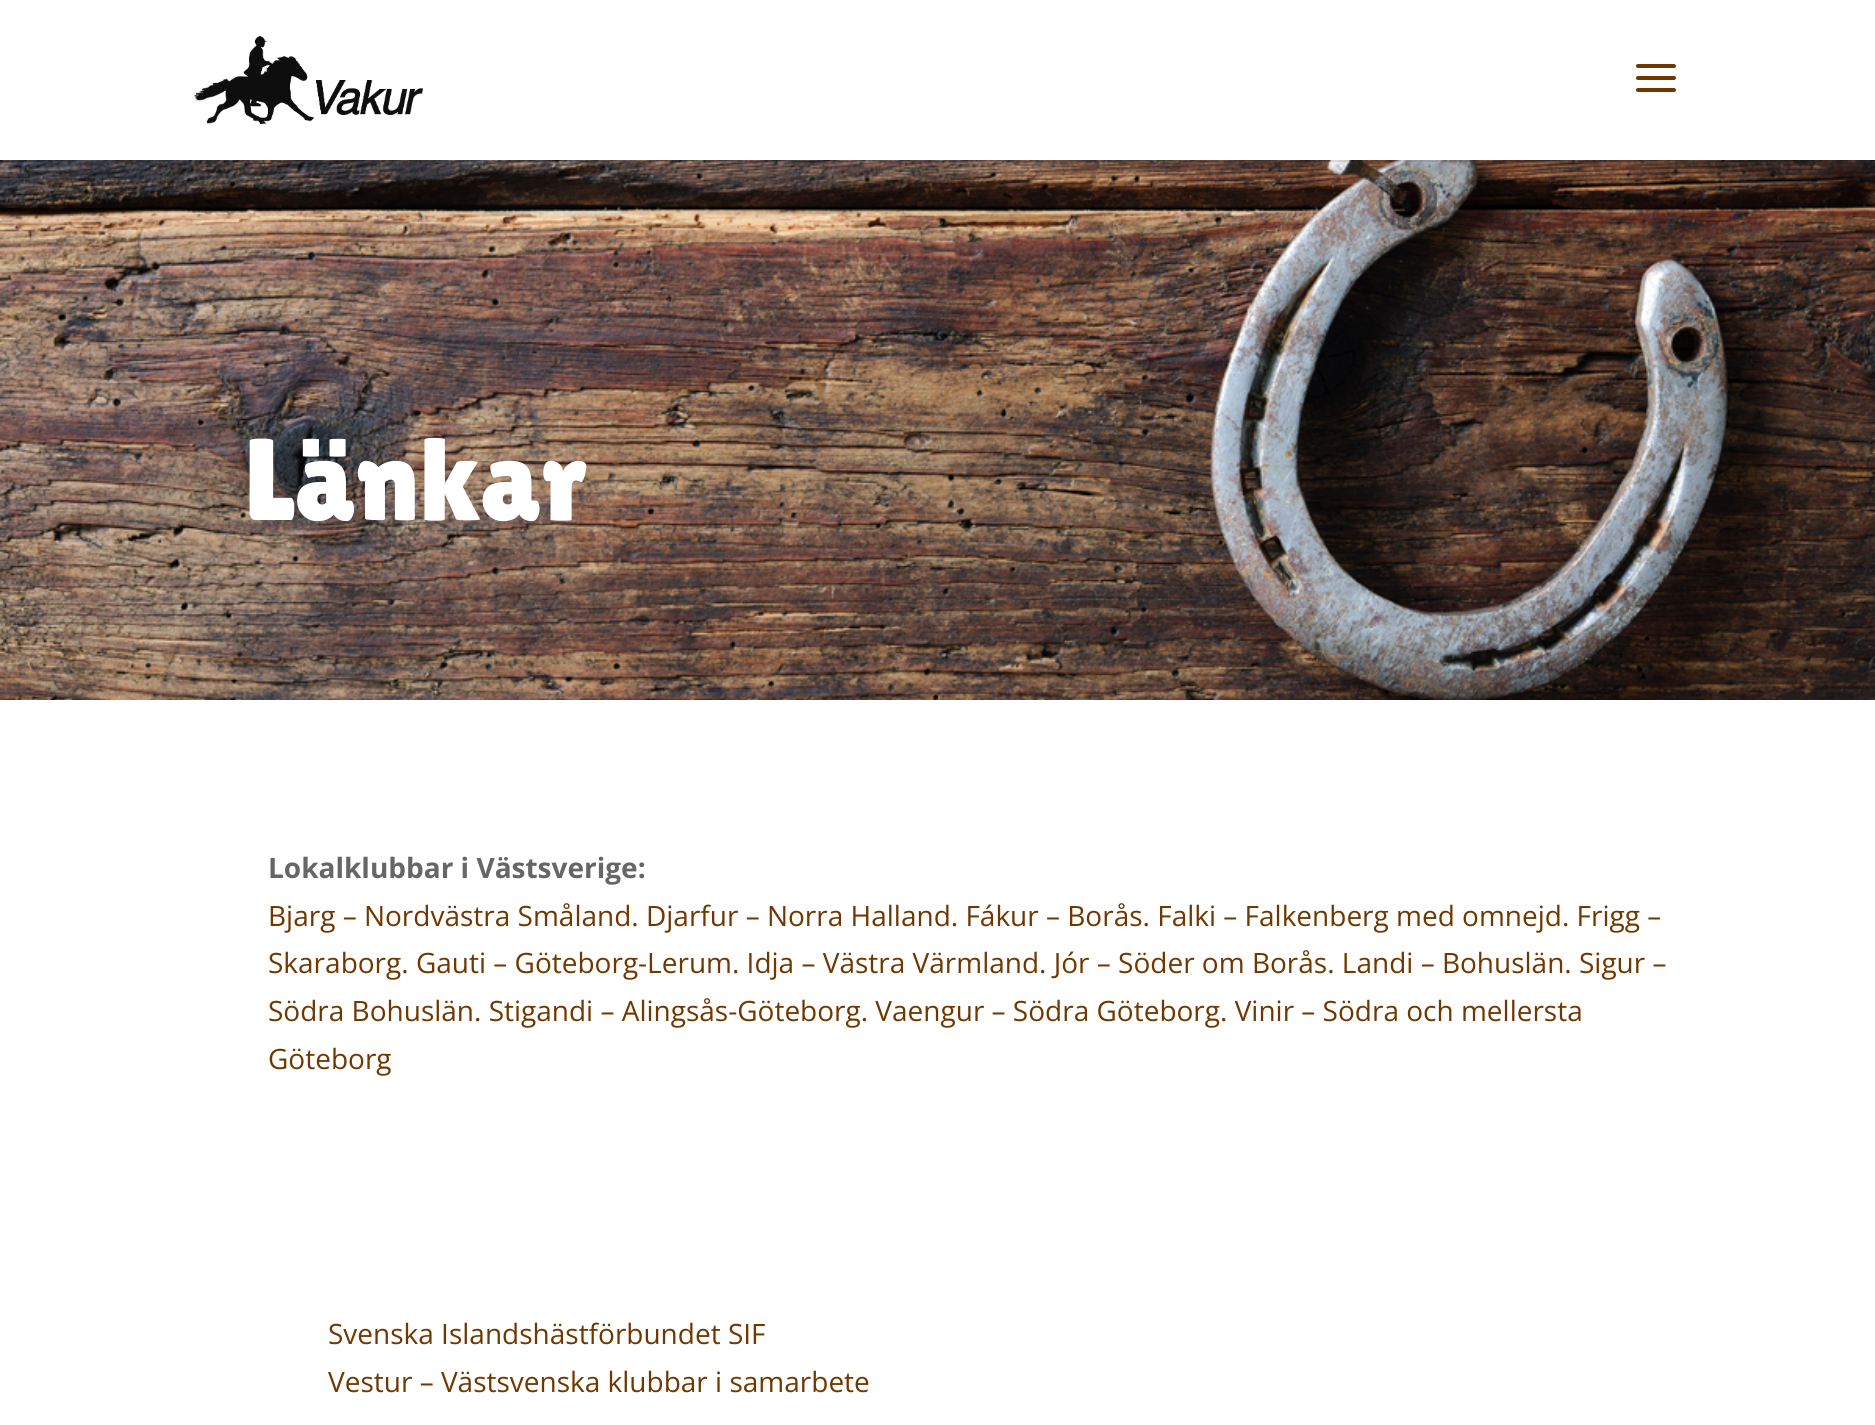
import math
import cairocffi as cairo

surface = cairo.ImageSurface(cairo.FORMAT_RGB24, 1875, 1425)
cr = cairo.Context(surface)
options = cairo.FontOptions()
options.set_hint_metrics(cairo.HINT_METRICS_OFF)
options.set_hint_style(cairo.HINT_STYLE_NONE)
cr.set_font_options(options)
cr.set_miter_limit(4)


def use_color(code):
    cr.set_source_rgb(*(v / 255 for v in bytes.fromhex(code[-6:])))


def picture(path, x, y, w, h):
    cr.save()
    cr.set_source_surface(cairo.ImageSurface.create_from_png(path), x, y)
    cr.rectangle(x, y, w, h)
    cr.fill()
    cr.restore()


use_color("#ffffff")
cr.paint()
picture("img3.png", 0, 160, 1875, 540)
cr.set_source_rgba(0, 0, 0, 0.1)
cr.rectangle(0, 160, 1875, 2)
cr.fill()
picture("img1.png", 194, 36, 229, 88)
picture("img2.png", 1636, 64, 40, 28)
cr.select_font_face("Lilita One")
cr.set_font_size(116)
use_color("#ffffff")
cr.move_to(245, 520)
cr.show_text("Länkar")
cr.select_font_face("Open Sans", cairo.FONT_SLANT_NORMAL, cairo.FONT_WEIGHT_BOLD)
cr.set_font_size(28)
use_color("#666666")
cr.move_to(268, 878)
cr.show_text("Lokalklubbar i Västsverige:")
cr.select_font_face("Open Sans")
use_color("#703800")
cr.move_to(268, 926)
cr.show_text("Bjarg – Nordvästra Småland. Djarfur – Norra Halland. Fákur – Borås. Falki – Falkenberg med omnejd. Frigg –")
cr.move_to(268, 973)
cr.show_text("Skaraborg. Gauti – Göteborg-Lerum. Idja – Västra Värmland. Jór – Söder om Borås. Landi – Bohuslän. Sigur –")
cr.move_to(268, 1021)
cr.show_text("Södra Bohuslän. Stigandi – Alingsås-Göteborg. Vaengur – Södra Göteborg. Vinir – Södra och mellersta")
cr.move_to(268, 1069)
cr.show_text("Göteborg")
cr.move_to(328, 1344)
cr.show_text("Svenska Islandshästförbundet SIF")
cr.move_to(328, 1392)
cr.show_text("Vestur – Västsvenska klubbar i samarbete")
surface.write_to_png("result.png")
